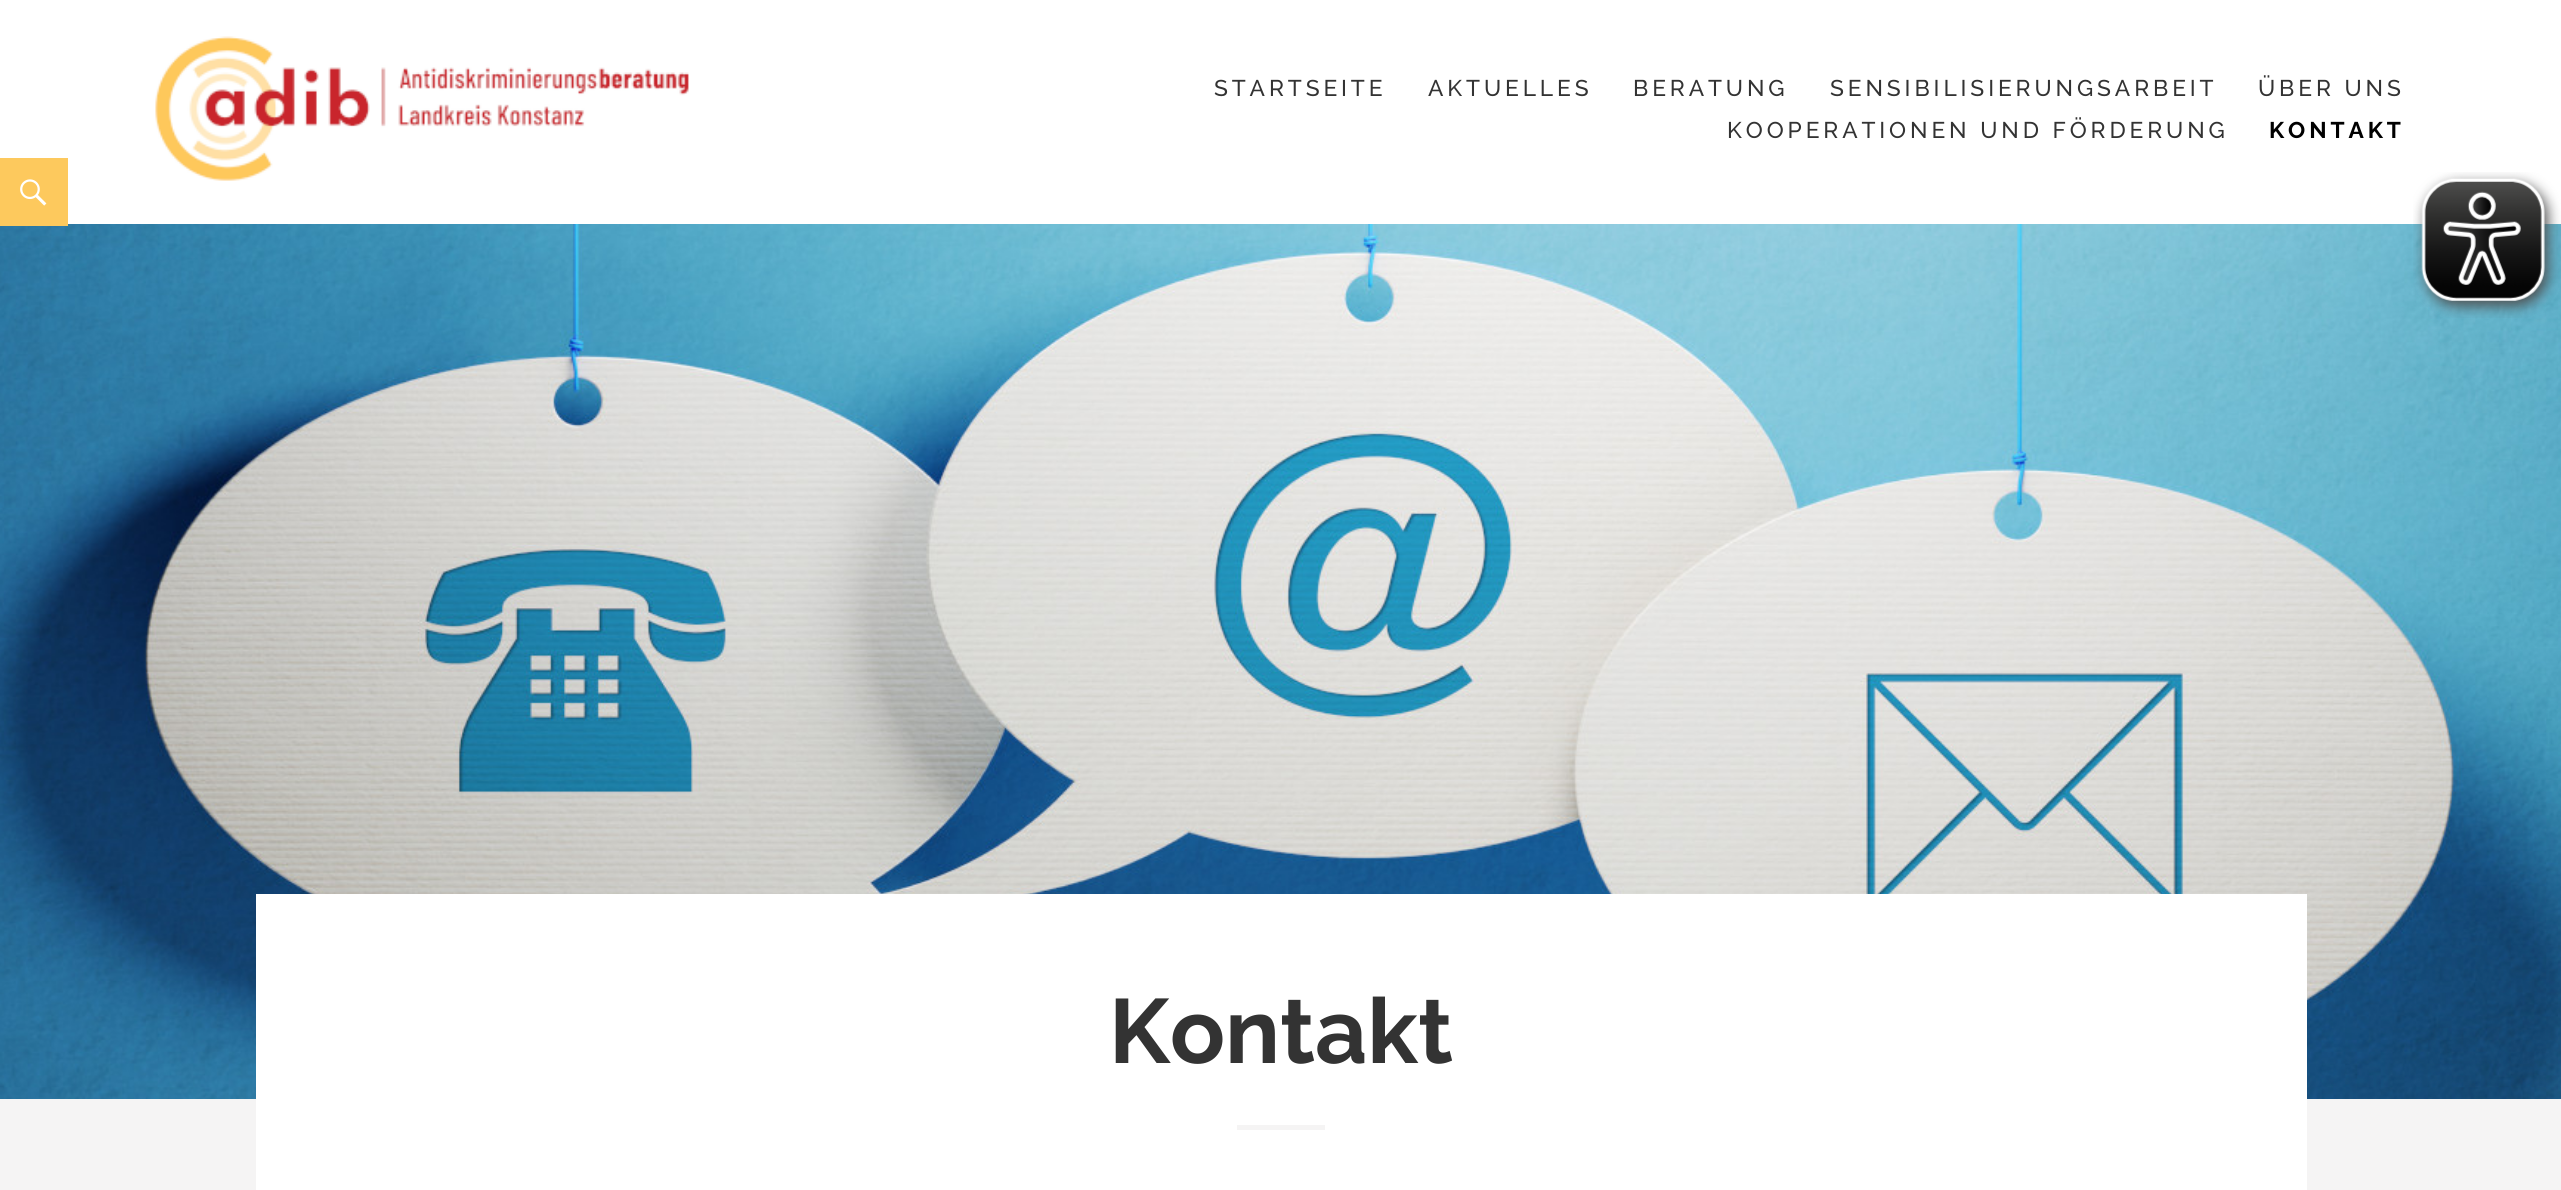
import math
import cairocffi as cairo

surface = cairo.ImageSurface(cairo.FORMAT_RGB24, 2561, 1190)
cr = cairo.Context(surface)
options = cairo.FontOptions()
options.set_hint_metrics(cairo.HINT_METRICS_OFF)
options.set_hint_style(cairo.HINT_STYLE_NONE)
cr.set_font_options(options)
cr.set_miter_limit(4)


def use_color(code):
    cr.set_source_rgb(*(v / 255 for v in bytes.fromhex(code[-6:])))


def spaced_text(x, y, s, letter, word):
    cr.move_to(x, y)
    for ch in s:
        cr.show_text(ch)
        cr.rel_move_to(letter + word * (ch == ' '), 0)


def picture(path, x, y, w, h):
    cr.save()
    cr.set_source_surface(cairo.ImageSurface.create_from_png(path), x, y)
    cr.rectangle(x, y, w, h)
    cr.fill()
    cr.restore()


use_color("#f5f4f4")
cr.paint()
use_color("#ffffff")
cr.rectangle(0, 0, 2561, 224)
cr.fill()
picture("img1.png", 155, 36, 534, 145)
cr.select_font_face("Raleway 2 Thin")
cr.set_font_size(22.75)
use_color("#333333")
spaced_text(1214, 96, "STARTSEITE", 3.9, 0)
spaced_text(1428, 96, "AKTUELLES", 3.9, 0)
spaced_text(1633, 96, "BERATUNG", 3.9, 0)
spaced_text(1830, 96, "SENSIBILISIERUNGSARBEIT", 3.9, 0)
spaced_text(2258, 96, "ÜBER UNS", 3.9, 0)
spaced_text(1727, 138, "KOOPERATIONEN UND FÖRDERUNG", 3.9, 0)
cr.select_font_face("Raleway Thin")
use_color("#000000")
spaced_text(2269, 138, "KONTAKT", 3.9, 0)
picture("img4.png", 0, 224, 2561, 875)
use_color("#fdc95d")
cr.rectangle(0, 158, 68, 68)
cr.fill()
picture("img2.png", 20, 179, 27, 27)
picture("img3.png", 2413, 172, 148, 146)
use_color("#ffffff")
cr.rectangle(256, 894, 2051, 296)
cr.fill()
cr.set_font_size(91)
use_color("#333333")
cr.move_to(1109, 1063)
cr.show_text("Kontakt")
use_color("#f5f4f4")
cr.rectangle(1237, 1125, 88, 5)
cr.fill()
surface.write_to_png("result.png")
